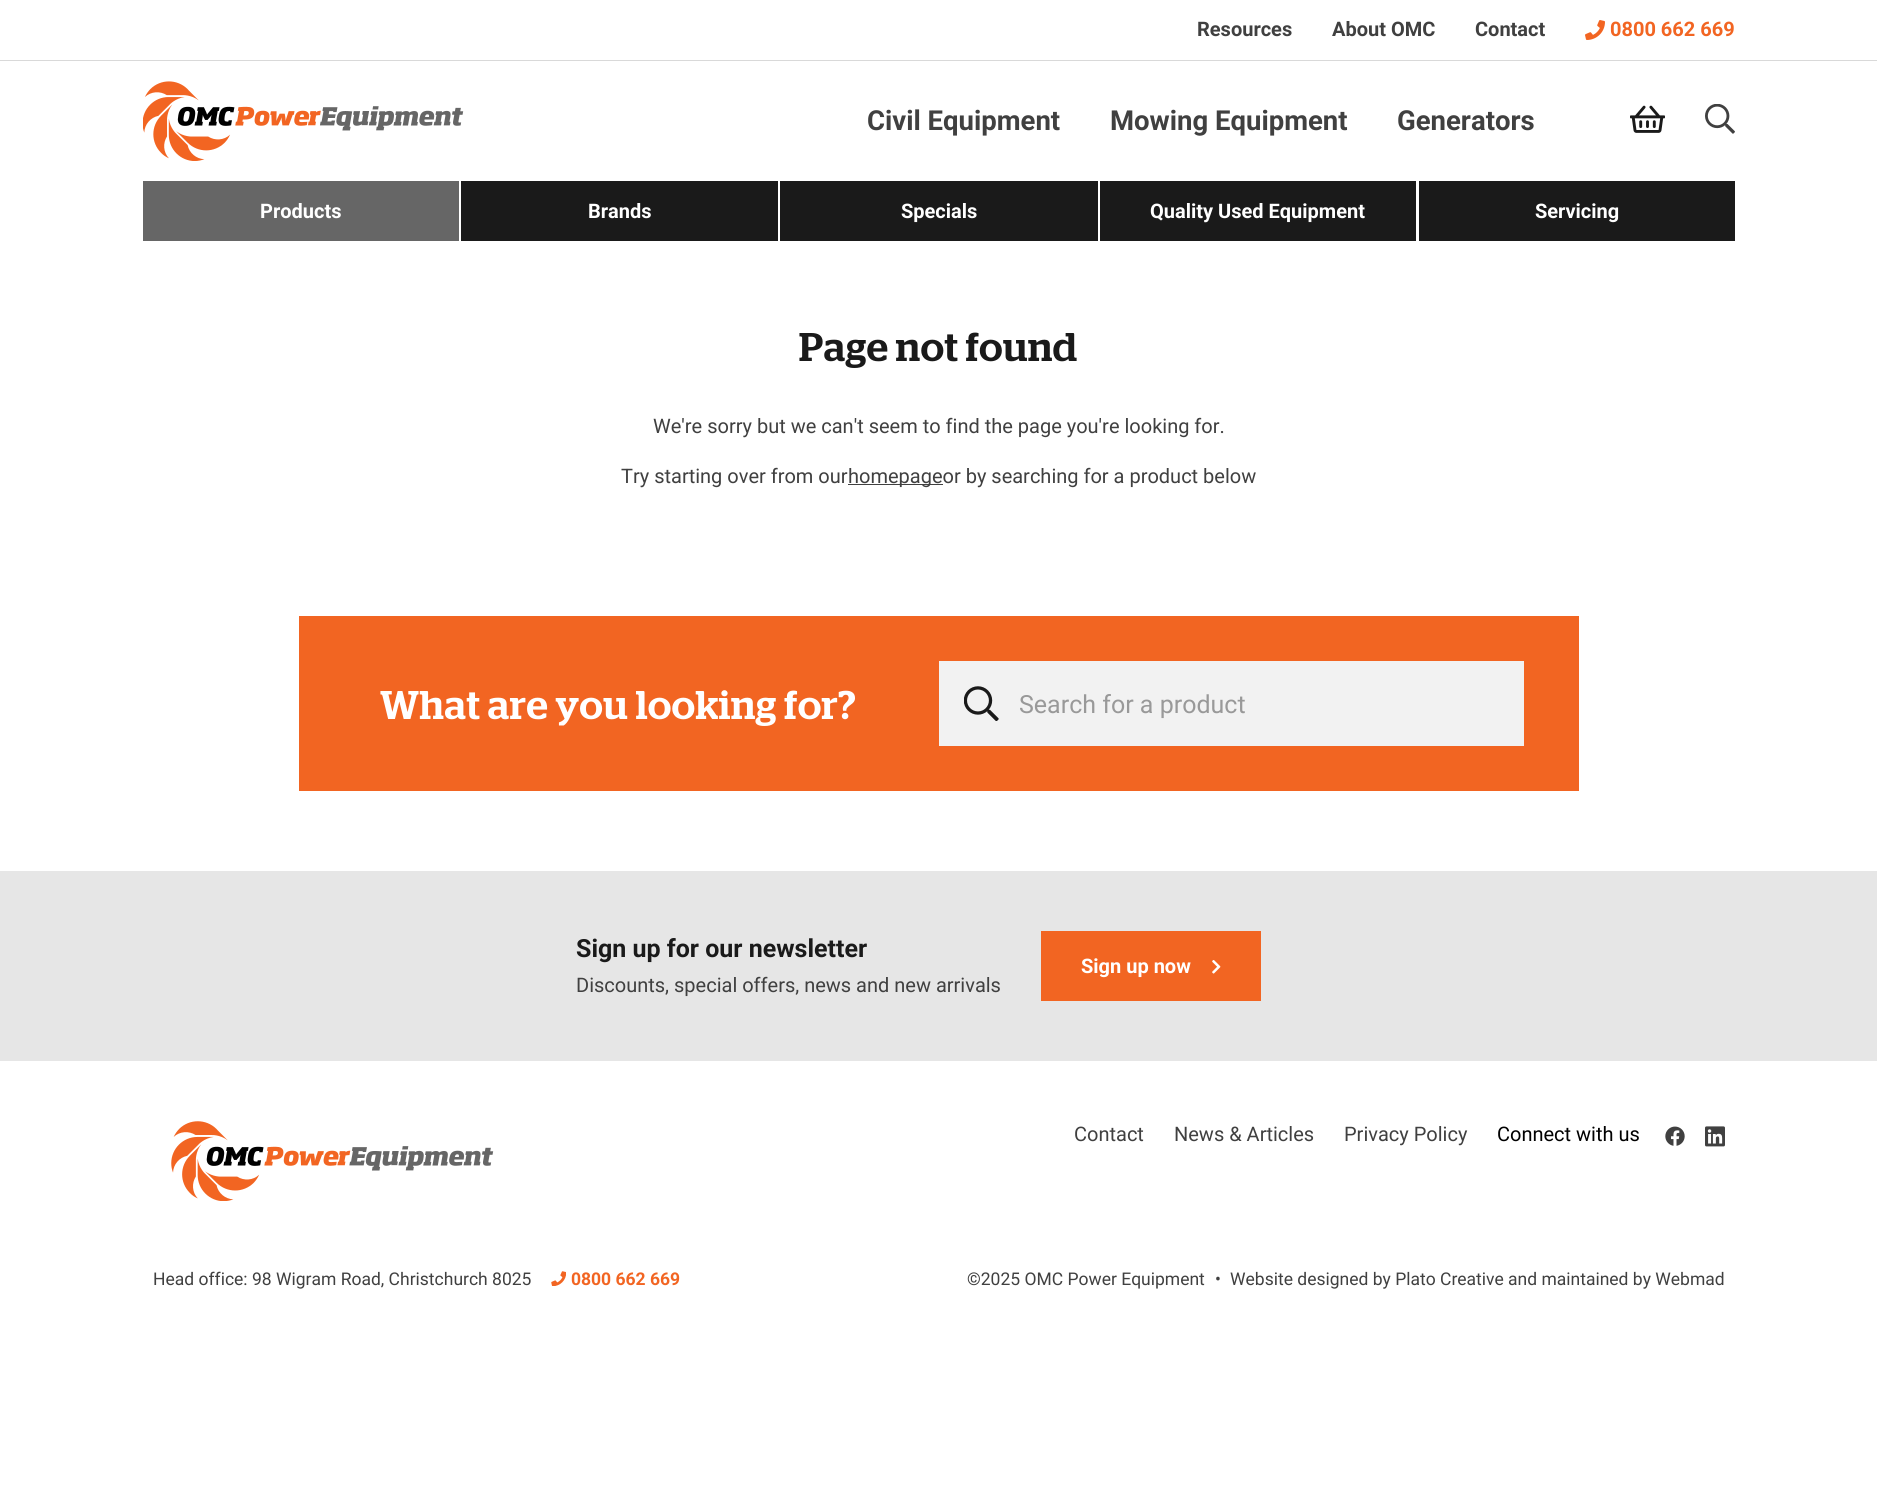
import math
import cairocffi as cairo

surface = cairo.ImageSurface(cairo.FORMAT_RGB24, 1877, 1499)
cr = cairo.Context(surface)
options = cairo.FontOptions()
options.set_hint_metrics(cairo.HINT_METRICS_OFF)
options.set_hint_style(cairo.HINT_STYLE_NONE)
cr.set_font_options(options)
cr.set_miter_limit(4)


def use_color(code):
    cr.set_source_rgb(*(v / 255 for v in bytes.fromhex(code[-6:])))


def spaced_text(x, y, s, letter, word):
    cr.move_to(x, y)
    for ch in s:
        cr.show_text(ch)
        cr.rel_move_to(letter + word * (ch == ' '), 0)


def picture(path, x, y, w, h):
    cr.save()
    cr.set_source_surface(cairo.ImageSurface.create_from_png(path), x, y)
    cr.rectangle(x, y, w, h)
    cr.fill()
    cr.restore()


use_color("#ffffff")
cr.paint()
use_color("#d9d9d9")
cr.rectangle(0, 60, 1877, 1)
cr.fill()
cr.select_font_face("Roboto", cairo.FONT_SLANT_NORMAL, cairo.FONT_WEIGHT_BOLD)
cr.set_font_size(20)
use_color("#404040")
cr.move_to(1197, 36)
cr.show_text("Resources")
cr.move_to(1332, 36)
cr.show_text("About OMC")
cr.move_to(1475, 36)
cr.show_text("Contact")
picture("img1.png", 1585, 20, 20, 20)
use_color("#f26522")
cr.move_to(1610, 36)
cr.show_text("0800 662 669")
picture("img2.png", 143, 81, 321, 80)
cr.set_font_size(27.5)
use_color("#404040")
cr.move_to(867, 130)
cr.show_text("Civil Equipment")
cr.move_to(1110, 130)
cr.show_text("Mowing Equipment")
cr.move_to(1397, 130)
cr.show_text("Generators")
picture("img3.png", 1630, 105, 35, 28)
picture("img4.png", 1705, 104, 30, 30)
use_color("#666666")
cr.rectangle(143, 181, 316, 60)
cr.fill()
cr.set_font_size(20)
use_color("#ffffff")
cr.move_to(260, 218)
cr.show_text("Products")
use_color("#1a1a1a")
cr.rectangle(461, 181, 317, 60)
cr.fill()
use_color("#ffffff")
cr.move_to(588, 218)
cr.show_text("Brands")
use_color("#1a1a1a")
cr.rectangle(780, 181, 318, 60)
cr.fill()
use_color("#ffffff")
cr.move_to(901, 218)
cr.show_text("Specials")
use_color("#1a1a1a")
cr.rectangle(1100, 181, 316, 60)
cr.fill()
use_color("#ffffff")
cr.move_to(1150, 218)
cr.show_text("Quality Used Equipment")
use_color("#1a1a1a")
cr.rectangle(1419, 181, 316, 60)
cr.fill()
use_color("#ffffff")
cr.move_to(1535, 218)
cr.show_text("Servicing")
cr.select_font_face("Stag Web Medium")
cr.set_font_size(40)
use_color("#1a1a1a")
spaced_text(799, 361, "Page not found", 0.6, 0)
cr.select_font_face("Roboto")
cr.set_font_size(20)
use_color("#404040")
cr.move_to(653, 433)
cr.show_text("We're sorry but we can't seem to find the page you're looking for.")
cr.move_to(621, 483)
cr.show_text("Try starting over from our")
cr.rectangle(848, 484, 95, 1)
cr.fill()
cr.move_to(848, 483)
cr.show_text("homepageor by searching for a product below")
use_color("#f26522")
cr.rectangle(299, 616, 1280, 175)
cr.fill()
cr.select_font_face("Stag Web Medium")
cr.set_font_size(40)
use_color("#ffffff")
spaced_text(380, 719, "What are you looking for?", 0.6, 0)
use_color("#f2f2f2")
cr.rectangle(939, 661, 585, 85)
cr.fill()
picture("img5.png", 964, 686, 35, 35)
cr.select_font_face("Roboto")
cr.set_font_size(25)
use_color("#999999")
cr.move_to(1019, 713)
cr.show_text("Search for a product")
use_color("#e6e6e6")
cr.rectangle(0, 871, 1877, 190)
cr.fill()
cr.select_font_face("Roboto", cairo.FONT_SLANT_NORMAL, cairo.FONT_WEIGHT_BOLD)
use_color("#1a1a1a")
cr.move_to(576, 957)
cr.show_text("Sign up for our newsletter")
cr.select_font_face("Roboto")
cr.set_font_size(20)
use_color("#404040")
cr.move_to(576, 992)
cr.show_text("Discounts, special offers, news and new arrivals")
use_color("#f26522")
cr.rectangle(1041, 931, 220, 70)
cr.fill()
cr.select_font_face("Roboto", cairo.FONT_SLANT_NORMAL, cairo.FONT_WEIGHT_BOLD)
use_color("#ffffff")
cr.move_to(1081, 973)
cr.show_text("Sign up now")
picture("img6.png", 1212, 960, 9, 14)
picture("img7.png", 171, 1121, 323, 80)
cr.select_font_face("Roboto")
use_color("#404040")
cr.move_to(1074, 1141)
cr.show_text("Contact")
cr.move_to(1174, 1141)
cr.show_text("News & Articles")
cr.move_to(1344, 1141)
cr.show_text("Privacy Policy")
use_color("#000000")
cr.move_to(1497, 1141)
cr.show_text("Connect with us")
picture("img8.png", 1665, 1126, 20, 20)
picture("img9.png", 1705, 1126, 20, 21)
cr.set_font_size(17.5)
use_color("#404040")
cr.move_to(153, 1285)
cr.show_text("Head office: 98 Wigram Road, Christchurch 8025")
picture("img10.png", 551, 1271, 15, 15)
cr.select_font_face("Roboto", cairo.FONT_SLANT_NORMAL, cairo.FONT_WEIGHT_BOLD)
use_color("#f26522")
cr.move_to(571, 1285)
cr.show_text("0800 662 669")
cr.select_font_face("Roboto")
use_color("#404040")
cr.move_to(967, 1285)
cr.show_text("©2025 OMC Power Equipment")
cr.move_to(1215, 1285)
cr.show_text("•")
cr.move_to(1230, 1285)
cr.show_text("Website designed by Plato Creative")
cr.move_to(1508, 1285)
cr.show_text("and maintained by Webmad")
surface.write_to_png("result.png")
